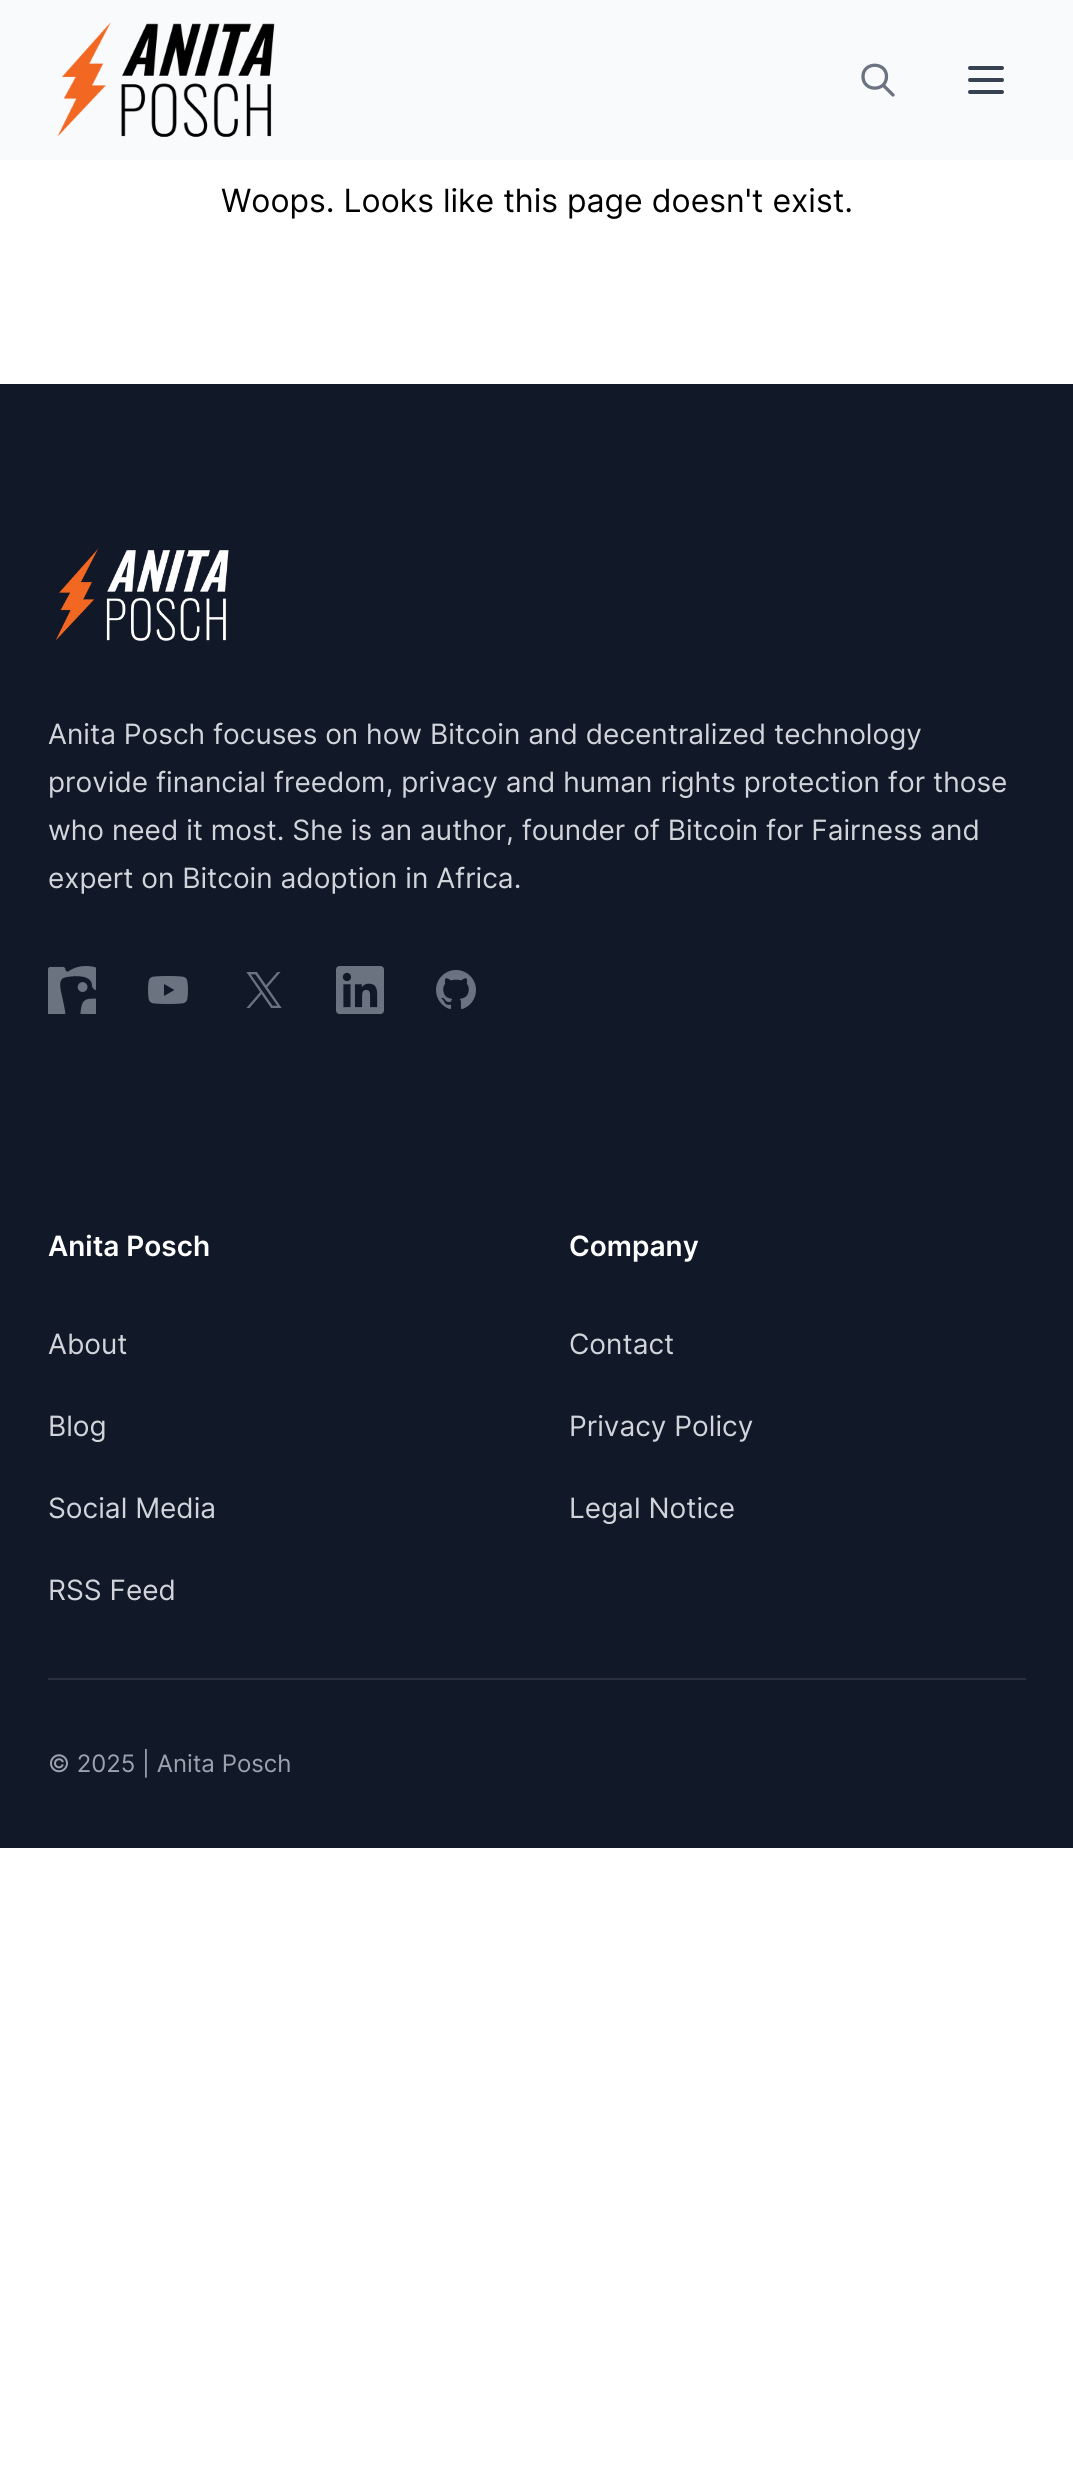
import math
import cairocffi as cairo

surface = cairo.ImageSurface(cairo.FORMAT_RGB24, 1073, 2490)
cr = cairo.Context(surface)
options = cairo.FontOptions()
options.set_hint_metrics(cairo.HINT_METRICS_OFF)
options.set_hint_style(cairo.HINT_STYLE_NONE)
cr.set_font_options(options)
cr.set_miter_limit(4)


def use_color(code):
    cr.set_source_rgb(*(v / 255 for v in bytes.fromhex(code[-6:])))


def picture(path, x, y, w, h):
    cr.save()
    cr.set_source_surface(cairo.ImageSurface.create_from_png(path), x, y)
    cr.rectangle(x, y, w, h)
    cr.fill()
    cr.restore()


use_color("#ffffff")
cr.paint()
use_color("#f9fafb")
cr.rectangle(0, 0, 1073, 160)
cr.fill()
picture("img1.png", 57, 22, 218, 115)
cr.new_path()
cr.move_to(893, 95)
cr.line_to(883, 85)
cr.move_to(886.5, 76.5)
cr.curve_to(886.5, 92, 863, 92, 863, 76.5)
cr.curve_to(863, 61.5, 886.5, 61.5, 886.5, 76.5)
cr.close_path()
use_color("#6b7280")
cr.set_line_width(3.3)
cr.set_line_cap(cairo.LINE_CAP_ROUND)
cr.set_line_join(cairo.LINE_JOIN_ROUND)
cr.stroke()
cr.new_path()
cr.move_to(970, 68)
cr.line_to(1002, 68)
cr.move_to(970, 80)
cr.line_to(1002, 80)
cr.move_to(970, 92)
cr.line_to(1002, 92)
use_color("#374151")
cr.set_line_width(4)
cr.stroke()
cr.select_font_face("Inter")
cr.set_font_size(32)
use_color("#000000")
cr.move_to(221, 212)
cr.show_text("Woops. Looks like this page doesn't exist.")
use_color("#111827")
cr.rectangle(0, 384, 1073, 1464)
cr.fill()
picture("img2.png", 56, 549, 173, 92)
cr.set_font_size(28)
use_color("#d1d5db")
cr.move_to(48, 744)
cr.show_text("Anita Posch focuses on how Bitcoin and decentralized technology")
cr.move_to(48, 792)
cr.show_text("provide financial freedom, privacy and human rights protection for those")
cr.move_to(48, 840)
cr.show_text("who need it most. She is an author, founder of Bitcoin for Fairness and")
cr.move_to(48, 888)
cr.show_text("expert on Bitcoin adoption in Africa.")
picture("img3.png", 48, 966, 48, 48)
picture("img4.png", 148, 976, 40, 28)
picture("img5.png", 246, 972, 36, 36)
picture("img6.png", 336, 966, 48, 48)
picture("img7.png", 436, 970, 40, 39)
cr.select_font_face("Inter SemiBold")
use_color("#ffffff")
cr.move_to(48, 1256)
cr.show_text("Anita Posch")
cr.select_font_face("Inter")
use_color("#d1d5db")
cr.move_to(48, 1354)
cr.show_text("About")
cr.move_to(48, 1436)
cr.show_text("Blog")
cr.move_to(48, 1518)
cr.show_text("Social Media")
cr.move_to(48, 1600)
cr.show_text("RSS Feed")
cr.select_font_face("Inter SemiBold")
use_color("#ffffff")
cr.move_to(569, 1256)
cr.show_text("Company")
cr.select_font_face("Inter")
use_color("#d1d5db")
cr.move_to(569, 1354)
cr.show_text("Contact")
cr.move_to(569, 1436)
cr.show_text("Privacy Policy")
cr.move_to(569, 1518)
cr.show_text("Legal Notice")
use_color("#292f3d")
cr.rectangle(48, 1678, 978, 2)
cr.fill()
cr.set_font_size(24)
use_color("#9ca3af")
cr.move_to(48, 1772)
cr.show_text("© 2025 | Anita Posch")
surface.write_to_png("result.png")
